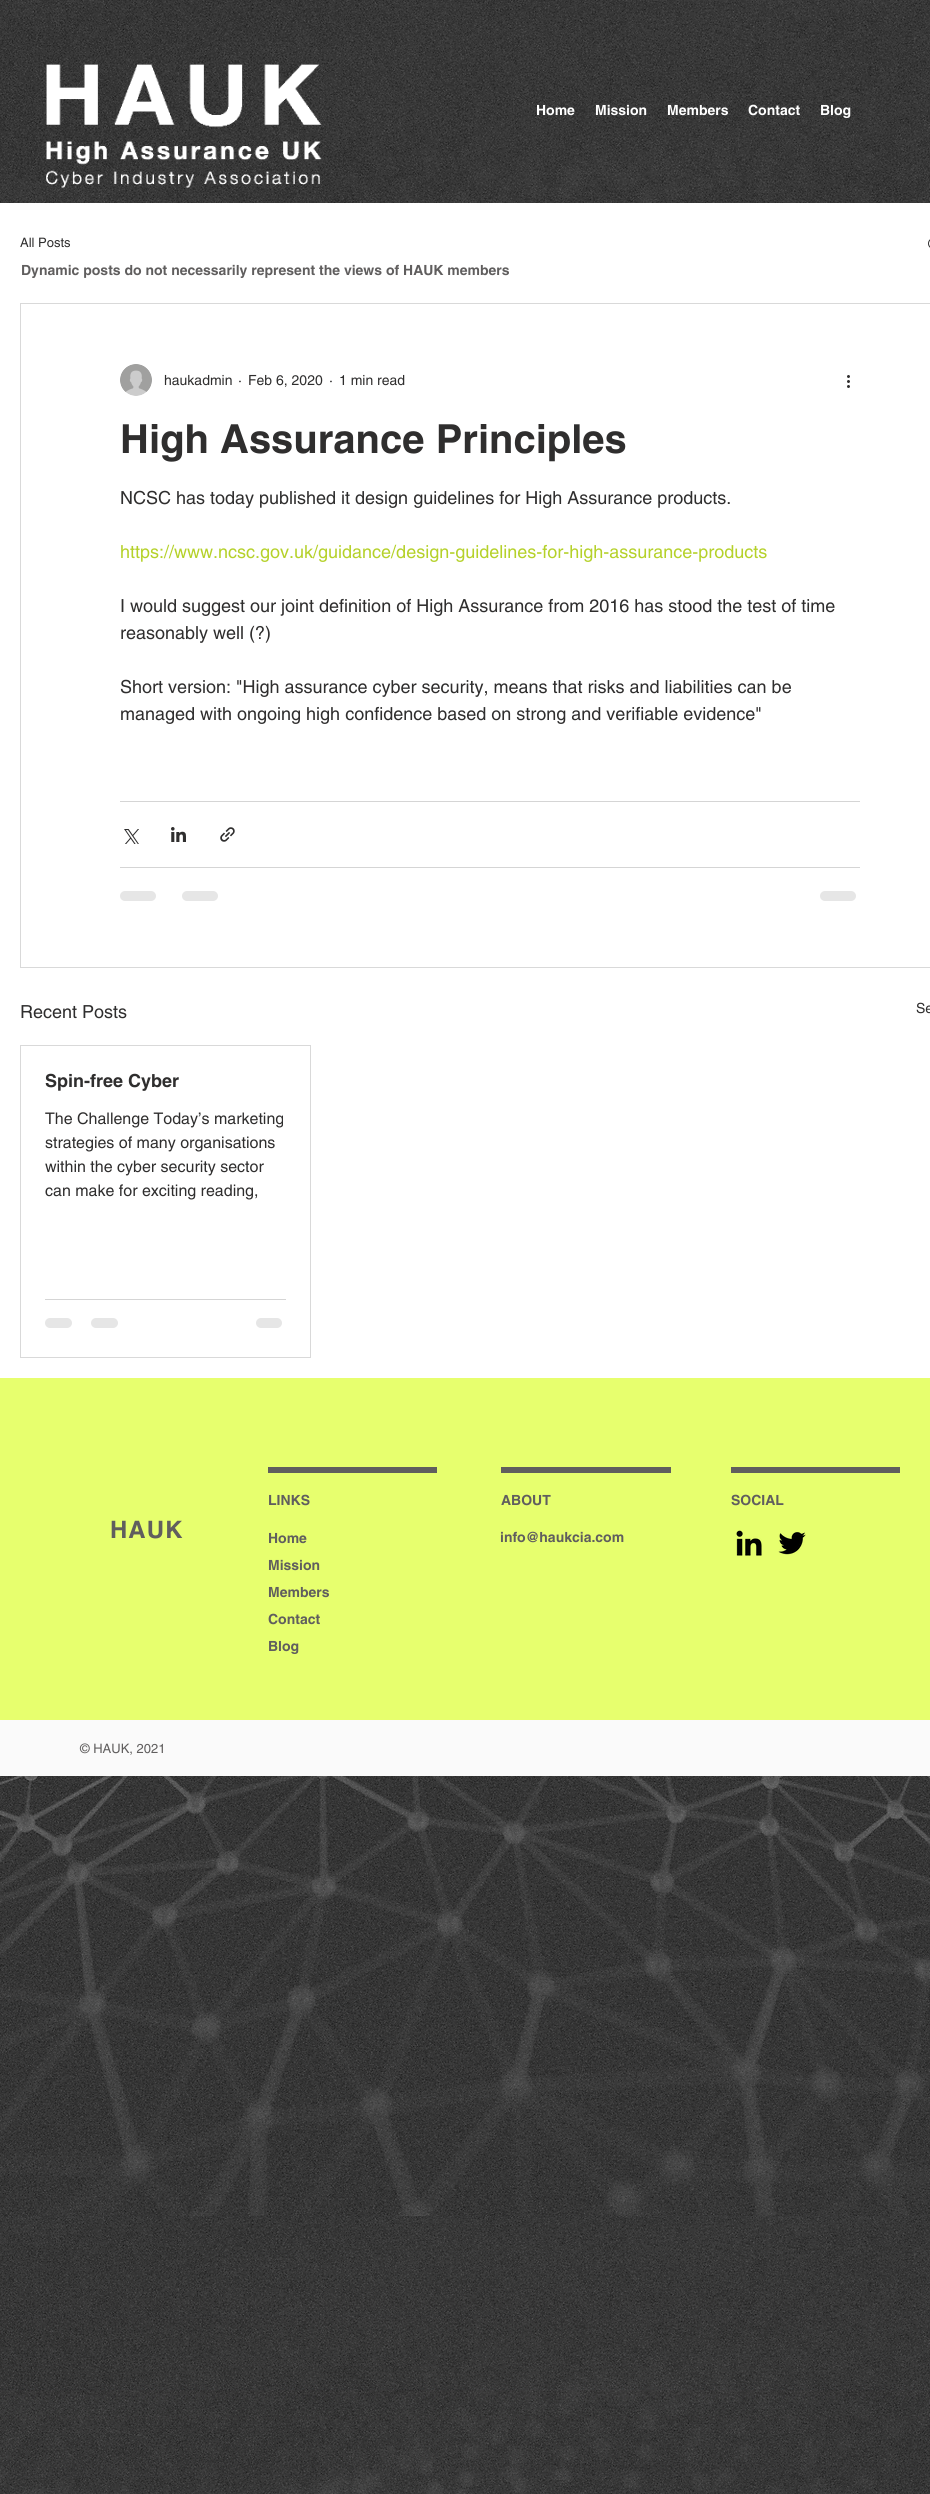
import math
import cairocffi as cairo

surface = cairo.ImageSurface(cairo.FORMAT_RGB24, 930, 2494)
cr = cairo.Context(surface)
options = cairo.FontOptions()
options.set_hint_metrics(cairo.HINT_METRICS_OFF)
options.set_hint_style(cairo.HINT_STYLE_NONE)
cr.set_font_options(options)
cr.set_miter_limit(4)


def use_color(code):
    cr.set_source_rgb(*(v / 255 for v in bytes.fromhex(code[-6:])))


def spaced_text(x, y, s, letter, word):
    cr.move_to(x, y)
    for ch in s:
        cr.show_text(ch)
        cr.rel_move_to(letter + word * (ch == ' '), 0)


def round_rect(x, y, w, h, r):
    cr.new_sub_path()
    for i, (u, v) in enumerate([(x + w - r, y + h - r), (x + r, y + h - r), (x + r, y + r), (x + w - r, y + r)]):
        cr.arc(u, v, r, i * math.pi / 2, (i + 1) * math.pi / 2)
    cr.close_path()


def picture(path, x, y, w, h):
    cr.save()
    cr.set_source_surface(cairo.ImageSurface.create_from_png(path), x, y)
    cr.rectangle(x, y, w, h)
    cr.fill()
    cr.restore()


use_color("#ffffff")
cr.paint()
picture("img1.png", 0, 0, 930, 2494)
picture("img2.png", 46, 64, 276, 124)
cr.select_font_face("helvetica", cairo.FONT_SLANT_NORMAL, cairo.FONT_WEIGHT_BOLD)
cr.set_font_size(14)
use_color("#ffffff")
cr.move_to(536, 115)
cr.show_text("Home")
cr.move_to(595, 115)
cr.show_text("Mission")
cr.move_to(667, 115)
cr.show_text("Members")
cr.move_to(748, 115)
cr.show_text("Contact")
cr.move_to(820, 115)
cr.show_text("Blog")
cr.rectangle(0, 203, 930, 1175)
cr.fill()
cr.select_font_face("helvetica")
cr.set_font_size(13)
use_color("#2f2e2e")
cr.move_to(20, 247)
cr.show_text("All Posts")
picture("img3.png", 928, 239, 2, 9)
cr.rectangle(20.5, 303.5, 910, 664)
use_color("#d9d9d9")
cr.set_line_width(1)
cr.stroke()
picture("img4.png", 120, 364, 32, 32)
cr.set_font_size(14)
use_color("#2f2e2e")
cr.move_to(164, 385)
cr.show_text("haukadmin")
cr.move_to(238, 385)
cr.show_text("·")
cr.move_to(248, 385)
cr.show_text("Feb 6, 2020")
cr.move_to(329, 385)
cr.show_text("·")
cr.move_to(339, 385)
cr.show_text("1 min read")
picture("img5.png", 847, 375, 3, 13)
cr.select_font_face("helvetica", cairo.FONT_SLANT_NORMAL, cairo.FONT_WEIGHT_BOLD)
cr.set_font_size(40)
cr.move_to(120, 453)
cr.show_text("High Assurance Principles")
cr.select_font_face("helvetica")
cr.set_font_size(18)
cr.move_to(120, 504)
cr.show_text("NCSC has today published it design guidelines for High Assurance products.")
use_color("#b5d12a")
cr.move_to(120, 558)
cr.show_text("https://www.ncsc.gov.uk/guidance/design-guidelines-for-high-assurance-products")
use_color("#2f2e2e")
cr.move_to(120, 612)
cr.show_text("I would suggest our joint definition of High Assurance from 2016 has stood the test of time")
cr.move_to(120, 639)
cr.show_text("reasonably well (?)")
cr.move_to(120, 693)
cr.show_text("Short version: \"High assurance cyber security, means that risks and liabilities can be")
cr.move_to(120, 720)
cr.show_text("managed with ongoing high confidence based on strong and verifiable evidence\"")
use_color("#d5d5d5")
cr.rectangle(120, 801, 740, 1)
cr.fill()
picture("img6.png", 124, 829, 15, 15)
picture("img7.png", 171, 827, 15, 15)
picture("img8.png", 220, 827, 15, 15)
cr.rectangle(120, 867, 740, 1)
cr.fill()
use_color("#e6e6e6")
round_rect(120, 891, 36, 10, 5)
cr.fill()
round_rect(182, 891, 36, 10, 5)
cr.fill()
round_rect(820, 891, 36, 10, 5)
cr.fill()
use_color("#2f2e2e")
cr.move_to(20, 1018)
cr.show_text("Recent Posts")
cr.set_font_size(14)
cr.move_to(916, 1013)
cr.show_text("Se")
cr.rectangle(20.5, 1045.5, 290, 312)
use_color("#d9d9d9")
cr.stroke()
cr.select_font_face("helvetica", cairo.FONT_SLANT_NORMAL, cairo.FONT_WEIGHT_BOLD)
cr.set_font_size(18)
use_color("#2f2e2e")
cr.move_to(45, 1087)
cr.show_text("Spin-free Cyber")
cr.select_font_face("helvetica")
cr.set_font_size(16)
cr.move_to(45, 1124)
cr.show_text("The Challenge Today’s marketing")
cr.move_to(45, 1148)
cr.show_text("strategies of many organisations")
cr.move_to(45, 1172)
cr.show_text("within the cyber security sector")
cr.move_to(45, 1196)
cr.show_text("can make for exciting reading,")
use_color("#d5d5d5")
cr.rectangle(45, 1299, 241, 1)
cr.fill()
use_color("#e6e6e6")
round_rect(45, 1318, 27, 10, 5)
cr.fill()
round_rect(91, 1318, 27, 10, 5)
cr.fill()
round_rect(256, 1318, 26, 10, 5)
cr.fill()
cr.select_font_face("helvetica", cairo.FONT_SLANT_NORMAL, cairo.FONT_WEIGHT_BOLD)
cr.set_font_size(14)
use_color("#605e5e")
cr.move_to(21, 275)
cr.show_text("Dynamic posts do not necessarily represent the views of HAUK members")
use_color("#e7ff6e")
cr.rectangle(0, 1378, 930, 342)
cr.fill()
use_color("#605e5e")
cr.rectangle(268, 1467, 169, 6)
cr.fill()
cr.rectangle(501, 1467, 170, 6)
cr.fill()
cr.rectangle(731, 1467, 169, 6)
cr.fill()
cr.move_to(268, 1505)
cr.show_text("LINKS")
cr.move_to(501, 1505)
cr.show_text("ABOUT")
cr.move_to(731, 1505)
cr.show_text("SOCIAL")
cr.set_font_size(24)
spaced_text(110, 1538, "HAUK", 1, 0)
cr.set_font_size(14)
cr.move_to(268, 1543)
cr.show_text("Home")
cr.move_to(268, 1570)
cr.show_text("Mission")
cr.move_to(268, 1597)
cr.show_text("Members")
cr.move_to(268, 1624)
cr.show_text("Contact")
cr.move_to(268, 1651)
cr.show_text("Blog")
cr.move_to(500, 1542)
cr.show_text("info@haukcia.com")
picture("img9.png", 736, 1530, 26, 26)
picture("img10.png", 778, 1532, 28, 23)
use_color("#fafafa")
cr.rectangle(0, 1720, 930, 56)
cr.fill()
cr.select_font_face("helvetica")
cr.set_font_size(13)
use_color("#605e5e")
cr.move_to(80, 1753)
cr.show_text("© HAUK, 2021")
surface.write_to_png("result.png")
